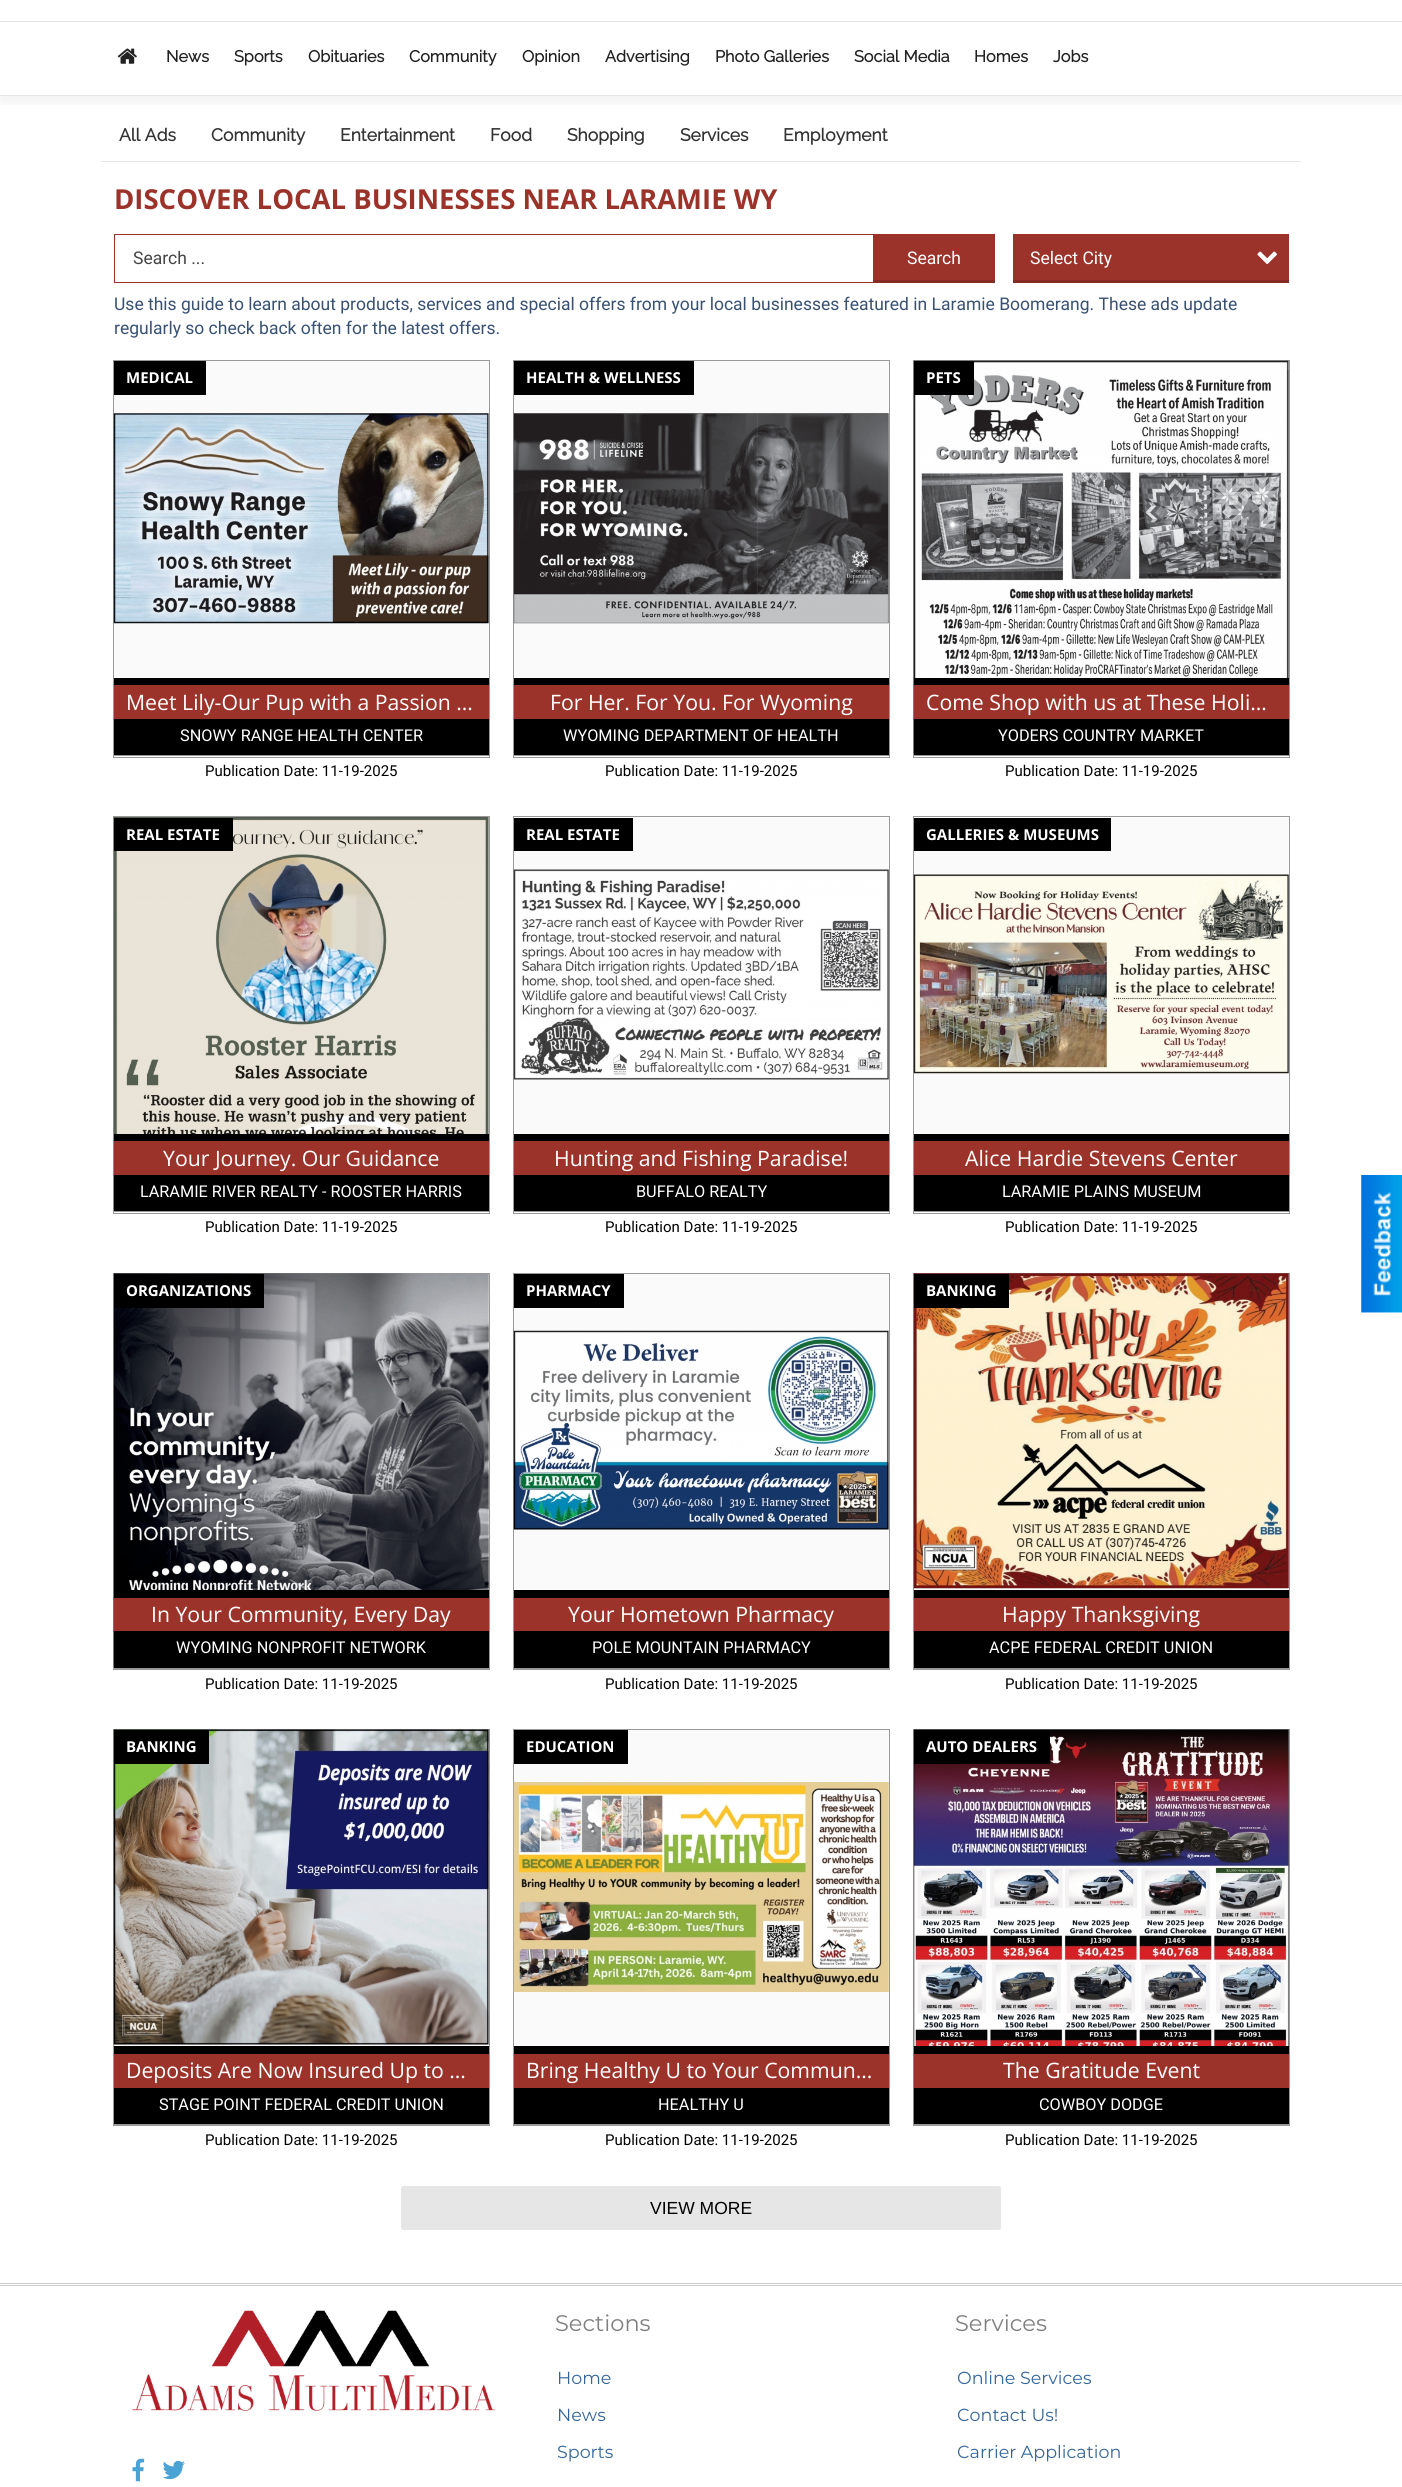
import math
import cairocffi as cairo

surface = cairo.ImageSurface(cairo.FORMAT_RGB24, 1402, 2487)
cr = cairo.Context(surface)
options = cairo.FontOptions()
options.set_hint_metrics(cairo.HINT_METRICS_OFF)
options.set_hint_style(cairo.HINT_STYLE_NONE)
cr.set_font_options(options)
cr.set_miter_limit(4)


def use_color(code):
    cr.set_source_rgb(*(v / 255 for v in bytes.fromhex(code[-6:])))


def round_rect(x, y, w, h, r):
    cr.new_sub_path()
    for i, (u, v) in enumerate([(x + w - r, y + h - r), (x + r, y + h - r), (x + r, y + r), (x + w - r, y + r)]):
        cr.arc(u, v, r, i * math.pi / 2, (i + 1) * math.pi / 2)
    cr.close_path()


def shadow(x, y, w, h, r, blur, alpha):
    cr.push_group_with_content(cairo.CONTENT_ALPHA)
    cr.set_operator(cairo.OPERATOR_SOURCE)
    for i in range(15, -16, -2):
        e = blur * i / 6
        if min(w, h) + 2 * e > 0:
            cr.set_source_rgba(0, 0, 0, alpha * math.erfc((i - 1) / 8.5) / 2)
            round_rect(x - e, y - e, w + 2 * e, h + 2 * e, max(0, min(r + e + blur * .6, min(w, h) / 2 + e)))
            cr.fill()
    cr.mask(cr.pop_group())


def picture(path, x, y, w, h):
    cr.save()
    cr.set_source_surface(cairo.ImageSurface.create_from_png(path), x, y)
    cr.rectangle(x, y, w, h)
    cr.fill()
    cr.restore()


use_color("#ffffff")
cr.paint()
cr.save()
cr.rectangle(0, 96, 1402, 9)
cr.clip()
use_color("#000000")
shadow(0, -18, 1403, 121, 0, 6, 0.05)
cr.restore()
use_color("#e6e6e6")
cr.rectangle(0, 95, 1402, 1)
cr.fill()
cr.rectangle(0, 21, 1402, 1)
cr.fill()
picture("img1.png", 117, 48, 20, 16)
cr.select_font_face("Raleway", cairo.FONT_SLANT_NORMAL, cairo.FONT_WEIGHT_BOLD)
cr.set_font_size(16.25)
use_color("#222222")
cr.move_to(166, 62)
cr.show_text("News")
cr.move_to(234, 62)
cr.show_text("Sports")
cr.move_to(308, 62)
cr.show_text("Obituaries")
cr.move_to(409, 62)
cr.show_text("Community")
cr.move_to(522, 62)
cr.show_text("Opinion")
cr.move_to(605, 62)
cr.show_text("Advertising")
cr.move_to(715, 62)
cr.show_text("Photo Galleries")
cr.move_to(854, 62)
cr.show_text("Social Media")
cr.move_to(974, 62)
cr.show_text("Homes")
cr.move_to(1053, 62)
cr.show_text("Jobs")
use_color("#e6e6e6")
cr.rectangle(101, 161, 1200, 1)
cr.fill()
cr.set_font_size(17.5)
use_color("#333333")
cr.move_to(119, 141)
cr.show_text("All Ads")
cr.move_to(211, 141)
cr.show_text("Community")
cr.move_to(340, 141)
cr.show_text("Entertainment")
cr.move_to(490, 141)
cr.show_text("Food")
cr.move_to(567, 141)
cr.show_text("Shopping")
cr.move_to(680, 141)
cr.show_text("Services")
cr.move_to(783, 141)
cr.show_text("Employment")
cr.select_font_face("Open Sans", cairo.FONT_SLANT_NORMAL, cairo.FONT_WEIGHT_BOLD)
cr.set_font_size(27.5)
use_color("#9b332a")
cr.move_to(114, 209)
cr.show_text("DISCOVER LOCAL BUSINESSES NEAR LARAMIE WY")
cr.rectangle(114.5, 234.5, 880, 48)
cr.set_line_width(1)
cr.stroke()
cr.select_font_face("Roboto")
cr.set_font_size(17.5)
use_color("#444444")
cr.move_to(133, 264)
cr.show_text("Search ...")
use_color("#9b332a")
cr.rectangle(873, 235, 121, 45)
cr.fill()
use_color("#842b24")
cr.rectangle(873, 280, 122, 3)
cr.fill()
use_color("#ffffff")
cr.move_to(907, 264)
cr.show_text("Search")
use_color("#9b332a")
cr.rectangle(1013, 234, 276, 46)
cr.fill()
use_color("#842b24")
cr.rectangle(1013, 280, 276, 3)
cr.fill()
use_color("#ffffff")
cr.move_to(1030, 264)
cr.show_text("Select City")
picture("img2.png", 1257, 251, 20, 14)
use_color("#385172")
cr.move_to(114, 310)
cr.show_text("Use this guide to learn about products, services and special offers from your local businesses featured in Laramie Boomerang. These ads update")
cr.move_to(114, 334)
cr.show_text("regularly so check back often for the latest offers.")
cr.rectangle(113.5, 360.5, 376, 397)
use_color("#999999")
cr.stroke()
cr.rectangle(114, 755, 375, 1)
cr.fill()
use_color("#fafafa")
cr.rectangle(114, 361, 375, 317)
cr.fill()
picture("img3.png", 113, 413, 376, 211)
use_color("#000000")
cr.rectangle(114, 678, 375, 77)
cr.fill()
cr.rectangle(114, 361, 92, 34)
cr.fill()
cr.select_font_face("Open Sans", cairo.FONT_SLANT_NORMAL, cairo.FONT_WEIGHT_BOLD)
cr.set_font_size(15)
use_color("#ffffff")
cr.move_to(126, 383)
cr.show_text("MEDICAL")
use_color("#9b332a")
cr.rectangle(114, 685, 375, 34)
cr.fill()
cr.select_font_face("Open Sans")
cr.set_font_size(21.25)
use_color("#ffffff")
cr.move_to(126, 710)
cr.show_text("Meet Lily-Our Pup with a Passion …")
cr.select_font_face("Roboto")
cr.set_font_size(16.25)
cr.move_to(180, 741)
cr.show_text("SNOWY RANGE HEALTH CENTER")
cr.set_font_size(15)
use_color("#000000")
cr.move_to(205, 776)
cr.show_text("Publication Date: 11-19-2025")
cr.rectangle(513.5, 360.5, 376, 397)
use_color("#999999")
cr.stroke()
cr.rectangle(514, 755, 375, 1)
cr.fill()
use_color("#fafafa")
cr.rectangle(514, 361, 375, 317)
cr.fill()
picture("img4.png", 513, 413, 376, 211)
use_color("#000000")
cr.rectangle(514, 678, 375, 77)
cr.fill()
cr.rectangle(514, 361, 180, 34)
cr.fill()
cr.select_font_face("Open Sans", cairo.FONT_SLANT_NORMAL, cairo.FONT_WEIGHT_BOLD)
use_color("#ffffff")
cr.move_to(526, 383)
cr.show_text("HEALTH & WELLNESS")
use_color("#9b332a")
cr.rectangle(514, 685, 375, 34)
cr.fill()
cr.select_font_face("Open Sans")
cr.set_font_size(21.25)
use_color("#ffffff")
cr.move_to(550, 710)
cr.show_text("For Her. For You. For Wyoming")
cr.select_font_face("Roboto")
cr.set_font_size(16.25)
cr.move_to(563, 741)
cr.show_text("WYOMING DEPARTMENT OF HEALTH")
cr.set_font_size(15)
use_color("#000000")
cr.move_to(605, 776)
cr.show_text("Publication Date: 11-19-2025")
cr.rectangle(913.5, 360.5, 376, 397)
use_color("#999999")
cr.stroke()
cr.rectangle(914, 755, 375, 1)
cr.fill()
picture("img5.png", 913, 360, 376, 395)
use_color("#000000")
cr.rectangle(914, 678, 375, 77)
cr.fill()
cr.rectangle(914, 361, 60, 34)
cr.fill()
cr.select_font_face("Open Sans", cairo.FONT_SLANT_NORMAL, cairo.FONT_WEIGHT_BOLD)
use_color("#ffffff")
cr.move_to(926, 383)
cr.show_text("PETS")
use_color("#9b332a")
cr.rectangle(914, 685, 375, 34)
cr.fill()
cr.select_font_face("Open Sans")
cr.set_font_size(21.25)
use_color("#ffffff")
cr.move_to(926, 710)
cr.show_text("Come Shop with us at These Holi…")
cr.select_font_face("Roboto")
cr.set_font_size(16.25)
cr.move_to(998, 741)
cr.show_text("YODERS COUNTRY MARKET")
cr.set_font_size(15)
use_color("#000000")
cr.move_to(1005, 776)
cr.show_text("Publication Date: 11-19-2025")
cr.rectangle(113.5, 816.5, 376, 397)
use_color("#999999")
cr.stroke()
cr.rectangle(114, 1211, 375, 1)
cr.fill()
picture("img6.png", 113, 817, 376, 394)
use_color("#000000")
cr.rectangle(114, 1134, 375, 77)
cr.fill()
cr.rectangle(114, 818, 119, 33)
cr.fill()
cr.select_font_face("Open Sans", cairo.FONT_SLANT_NORMAL, cairo.FONT_WEIGHT_BOLD)
use_color("#ffffff")
cr.move_to(126, 840)
cr.show_text("REAL ESTATE")
use_color("#9b332a")
cr.rectangle(114, 1141, 375, 34)
cr.fill()
cr.select_font_face("Open Sans")
cr.set_font_size(21.25)
use_color("#ffffff")
cr.move_to(163, 1166)
cr.show_text("Your Journey. Our Guidance")
cr.select_font_face("Roboto")
cr.set_font_size(16.25)
cr.move_to(140, 1197)
cr.show_text("LARAMIE RIVER REALTY - ROOSTER HARRIS")
cr.set_font_size(15)
use_color("#000000")
cr.move_to(205, 1232)
cr.show_text("Publication Date: 11-19-2025")
cr.rectangle(513.5, 816.5, 376, 397)
use_color("#999999")
cr.stroke()
cr.rectangle(514, 1211, 375, 1)
cr.fill()
use_color("#fafafa")
cr.rectangle(514, 818, 375, 316)
cr.fill()
picture("img7.png", 513, 869, 376, 211)
use_color("#000000")
cr.rectangle(514, 1134, 375, 77)
cr.fill()
cr.rectangle(514, 818, 119, 33)
cr.fill()
cr.select_font_face("Open Sans", cairo.FONT_SLANT_NORMAL, cairo.FONT_WEIGHT_BOLD)
use_color("#ffffff")
cr.move_to(526, 840)
cr.show_text("REAL ESTATE")
use_color("#9b332a")
cr.rectangle(514, 1141, 375, 34)
cr.fill()
cr.select_font_face("Open Sans")
cr.set_font_size(21.25)
use_color("#ffffff")
cr.move_to(554, 1166)
cr.show_text("Hunting and Fishing Paradise!")
cr.select_font_face("Roboto")
cr.set_font_size(16.25)
cr.move_to(636, 1197)
cr.show_text("BUFFALO REALTY")
cr.set_font_size(15)
use_color("#000000")
cr.move_to(605, 1232)
cr.show_text("Publication Date: 11-19-2025")
cr.rectangle(913.5, 816.5, 376, 397)
use_color("#999999")
cr.stroke()
cr.rectangle(914, 1211, 375, 1)
cr.fill()
use_color("#fafafa")
cr.rectangle(914, 818, 375, 316)
cr.fill()
picture("img8.png", 913, 874, 376, 200)
use_color("#000000")
cr.rectangle(914, 1134, 375, 77)
cr.fill()
cr.rectangle(914, 818, 197, 33)
cr.fill()
cr.select_font_face("Open Sans", cairo.FONT_SLANT_NORMAL, cairo.FONT_WEIGHT_BOLD)
use_color("#ffffff")
cr.move_to(926, 840)
cr.show_text("GALLERIES & MUSEUMS")
use_color("#9b332a")
cr.rectangle(914, 1141, 375, 34)
cr.fill()
cr.select_font_face("Open Sans")
cr.set_font_size(21.25)
use_color("#ffffff")
cr.move_to(965, 1166)
cr.show_text("Alice Hardie Stevens Center")
cr.select_font_face("Roboto")
cr.set_font_size(16.25)
cr.move_to(1002, 1197)
cr.show_text("LARAMIE PLAINS MUSEUM")
cr.set_font_size(15)
use_color("#000000")
cr.move_to(1005, 1232)
cr.show_text("Publication Date: 11-19-2025")
cr.rectangle(113.5, 1273.5, 376, 396)
use_color("#999999")
cr.stroke()
cr.rectangle(114, 1668, 375, 1)
cr.fill()
picture("img9.png", 113, 1273, 376, 394)
use_color("#000000")
cr.rectangle(114, 1590, 375, 78)
cr.fill()
cr.rectangle(114, 1274, 150, 34)
cr.fill()
cr.select_font_face("Open Sans", cairo.FONT_SLANT_NORMAL, cairo.FONT_WEIGHT_BOLD)
use_color("#ffffff")
cr.move_to(126, 1296)
cr.show_text("ORGANIZATIONS")
use_color("#9b332a")
cr.rectangle(114, 1598, 375, 33)
cr.fill()
cr.select_font_face("Open Sans")
cr.set_font_size(21.25)
use_color("#ffffff")
cr.move_to(151, 1622)
cr.show_text("In Your Community, Every Day")
cr.select_font_face("Roboto")
cr.set_font_size(16.25)
cr.move_to(176, 1653)
cr.show_text("WYOMING NONPROFIT NETWORK")
cr.set_font_size(15)
use_color("#000000")
cr.move_to(205, 1689)
cr.show_text("Publication Date: 11-19-2025")
cr.rectangle(513.5, 1273.5, 376, 396)
use_color("#999999")
cr.stroke()
cr.rectangle(514, 1668, 375, 1)
cr.fill()
use_color("#fafafa")
cr.rectangle(514, 1274, 375, 316)
cr.fill()
picture("img10.png", 513, 1330, 376, 200)
use_color("#000000")
cr.rectangle(514, 1590, 375, 78)
cr.fill()
cr.rectangle(514, 1274, 110, 34)
cr.fill()
cr.select_font_face("Open Sans", cairo.FONT_SLANT_NORMAL, cairo.FONT_WEIGHT_BOLD)
use_color("#ffffff")
cr.move_to(526, 1296)
cr.show_text("PHARMACY")
use_color("#9b332a")
cr.rectangle(514, 1598, 375, 33)
cr.fill()
cr.select_font_face("Open Sans")
cr.set_font_size(21.25)
use_color("#ffffff")
cr.move_to(568, 1622)
cr.show_text("Your Hometown Pharmacy")
cr.select_font_face("Roboto")
cr.set_font_size(16.25)
cr.move_to(592, 1653)
cr.show_text("POLE MOUNTAIN PHARMACY")
cr.set_font_size(15)
use_color("#000000")
cr.move_to(605, 1689)
cr.show_text("Publication Date: 11-19-2025")
cr.rectangle(913.5, 1273.5, 376, 396)
use_color("#999999")
cr.stroke()
cr.rectangle(914, 1668, 375, 1)
cr.fill()
use_color("#fafafa")
cr.rectangle(914, 1274, 375, 316)
cr.fill()
picture("img11.png", 913, 1273, 376, 316)
use_color("#000000")
cr.rectangle(914, 1590, 375, 78)
cr.fill()
cr.rectangle(914, 1274, 95, 34)
cr.fill()
cr.select_font_face("Open Sans", cairo.FONT_SLANT_NORMAL, cairo.FONT_WEIGHT_BOLD)
use_color("#ffffff")
cr.move_to(926, 1296)
cr.show_text("BANKING")
use_color("#9b332a")
cr.rectangle(914, 1598, 375, 33)
cr.fill()
cr.select_font_face("Open Sans")
cr.set_font_size(21.25)
use_color("#ffffff")
cr.move_to(1002, 1622)
cr.show_text("Happy Thanksgiving")
cr.select_font_face("Roboto")
cr.set_font_size(16.25)
cr.move_to(989, 1653)
cr.show_text("ACPE FEDERAL CREDIT UNION")
cr.set_font_size(15)
use_color("#000000")
cr.move_to(1005, 1689)
cr.show_text("Publication Date: 11-19-2025")
cr.rectangle(113.5, 1729.5, 376, 396)
use_color("#999999")
cr.stroke()
cr.rectangle(114, 2124, 375, 1)
cr.fill()
use_color("#fafafa")
cr.rectangle(114, 1730, 375, 316)
cr.fill()
picture("img12.png", 113, 1729, 376, 316)
use_color("#000000")
cr.rectangle(114, 2046, 375, 78)
cr.fill()
cr.rectangle(114, 1730, 95, 34)
cr.fill()
cr.select_font_face("Open Sans", cairo.FONT_SLANT_NORMAL, cairo.FONT_WEIGHT_BOLD)
use_color("#ffffff")
cr.move_to(126, 1752)
cr.show_text("BANKING")
use_color("#9b332a")
cr.rectangle(114, 2054, 375, 34)
cr.fill()
cr.select_font_face("Open Sans")
cr.set_font_size(21.25)
use_color("#ffffff")
cr.move_to(126, 2078)
cr.show_text("Deposits Are Now Insured Up to …")
cr.select_font_face("Roboto")
cr.set_font_size(16.25)
cr.move_to(159, 2110)
cr.show_text("STAGE POINT FEDERAL CREDIT UNION")
cr.set_font_size(15)
use_color("#000000")
cr.move_to(205, 2145)
cr.show_text("Publication Date: 11-19-2025")
cr.rectangle(513.5, 1729.5, 376, 396)
use_color("#999999")
cr.stroke()
cr.rectangle(514, 2124, 375, 1)
cr.fill()
use_color("#fafafa")
cr.rectangle(514, 1730, 375, 316)
cr.fill()
picture("img13.png", 513, 1782, 376, 210)
use_color("#000000")
cr.rectangle(514, 2046, 375, 78)
cr.fill()
cr.rectangle(514, 1730, 114, 34)
cr.fill()
cr.select_font_face("Open Sans", cairo.FONT_SLANT_NORMAL, cairo.FONT_WEIGHT_BOLD)
use_color("#ffffff")
cr.move_to(526, 1752)
cr.show_text("EDUCATION")
use_color("#9b332a")
cr.rectangle(514, 2054, 375, 34)
cr.fill()
cr.select_font_face("Open Sans")
cr.set_font_size(21.25)
use_color("#ffffff")
cr.move_to(526, 2078)
cr.show_text("Bring Healthy U to Your Commun…")
cr.select_font_face("Roboto")
cr.set_font_size(16.25)
cr.move_to(658, 2110)
cr.show_text("HEALTHY U")
cr.set_font_size(15)
use_color("#000000")
cr.move_to(605, 2145)
cr.show_text("Publication Date: 11-19-2025")
cr.rectangle(913.5, 1729.5, 376, 396)
use_color("#999999")
cr.stroke()
cr.rectangle(914, 2124, 375, 1)
cr.fill()
picture("img14.png", 913, 1729, 376, 395)
use_color("#000000")
cr.rectangle(914, 2046, 375, 78)
cr.fill()
cr.rectangle(914, 1730, 136, 34)
cr.fill()
cr.select_font_face("Open Sans", cairo.FONT_SLANT_NORMAL, cairo.FONT_WEIGHT_BOLD)
use_color("#ffffff")
cr.move_to(926, 1752)
cr.show_text("AUTO DEALERS")
use_color("#9b332a")
cr.rectangle(914, 2054, 375, 34)
cr.fill()
cr.select_font_face("Open Sans")
cr.set_font_size(21.25)
use_color("#ffffff")
cr.move_to(1003, 2078)
cr.show_text("The Gratitude Event")
cr.select_font_face("Roboto")
cr.set_font_size(16.25)
cr.move_to(1039, 2110)
cr.show_text("COWBOY DODGE")
cr.set_font_size(15)
use_color("#000000")
cr.move_to(1005, 2145)
cr.show_text("Publication Date: 11-19-2025")
use_color("#e6e6e6")
round_rect(401, 2186, 600, 44, 2.5)
cr.fill()
cr.select_font_face("Liberation Sans")
cr.set_font_size(17.5)
use_color("#000000")
cr.move_to(650, 2214)
cr.show_text("VIEW MORE")
picture("img15.png", 1361, 1175, 41, 138)
use_color("#cccccc")
cr.rectangle(0, 2283, 1402, 1)
cr.fill()
cr.rectangle(0, 2285, 1402, 1)
cr.fill()
picture("img16.png", 132, 2310, 363, 101)
picture("img17.png", 132, 2458, 13, 24)
picture("img18.png", 162, 2460, 23, 20)
cr.select_font_face("Montserrat")
cr.set_font_size(22.5)
use_color("#808080")
cr.move_to(555, 2331)
cr.show_text("Sections")
cr.set_font_size(17.5)
use_color("#336699")
cr.move_to(557, 2384)
cr.show_text("Home")
cr.move_to(557, 2421)
cr.show_text("News")
cr.move_to(557, 2458)
cr.show_text("Sports")
cr.set_font_size(22.5)
use_color("#808080")
cr.move_to(955, 2331)
cr.show_text("Services")
cr.set_font_size(17.5)
use_color("#336699")
cr.move_to(957, 2384)
cr.show_text("Online Services")
cr.move_to(957, 2421)
cr.show_text("Contact Us!")
cr.move_to(957, 2458)
cr.show_text("Carrier Application")
surface.write_to_png("result.png")
